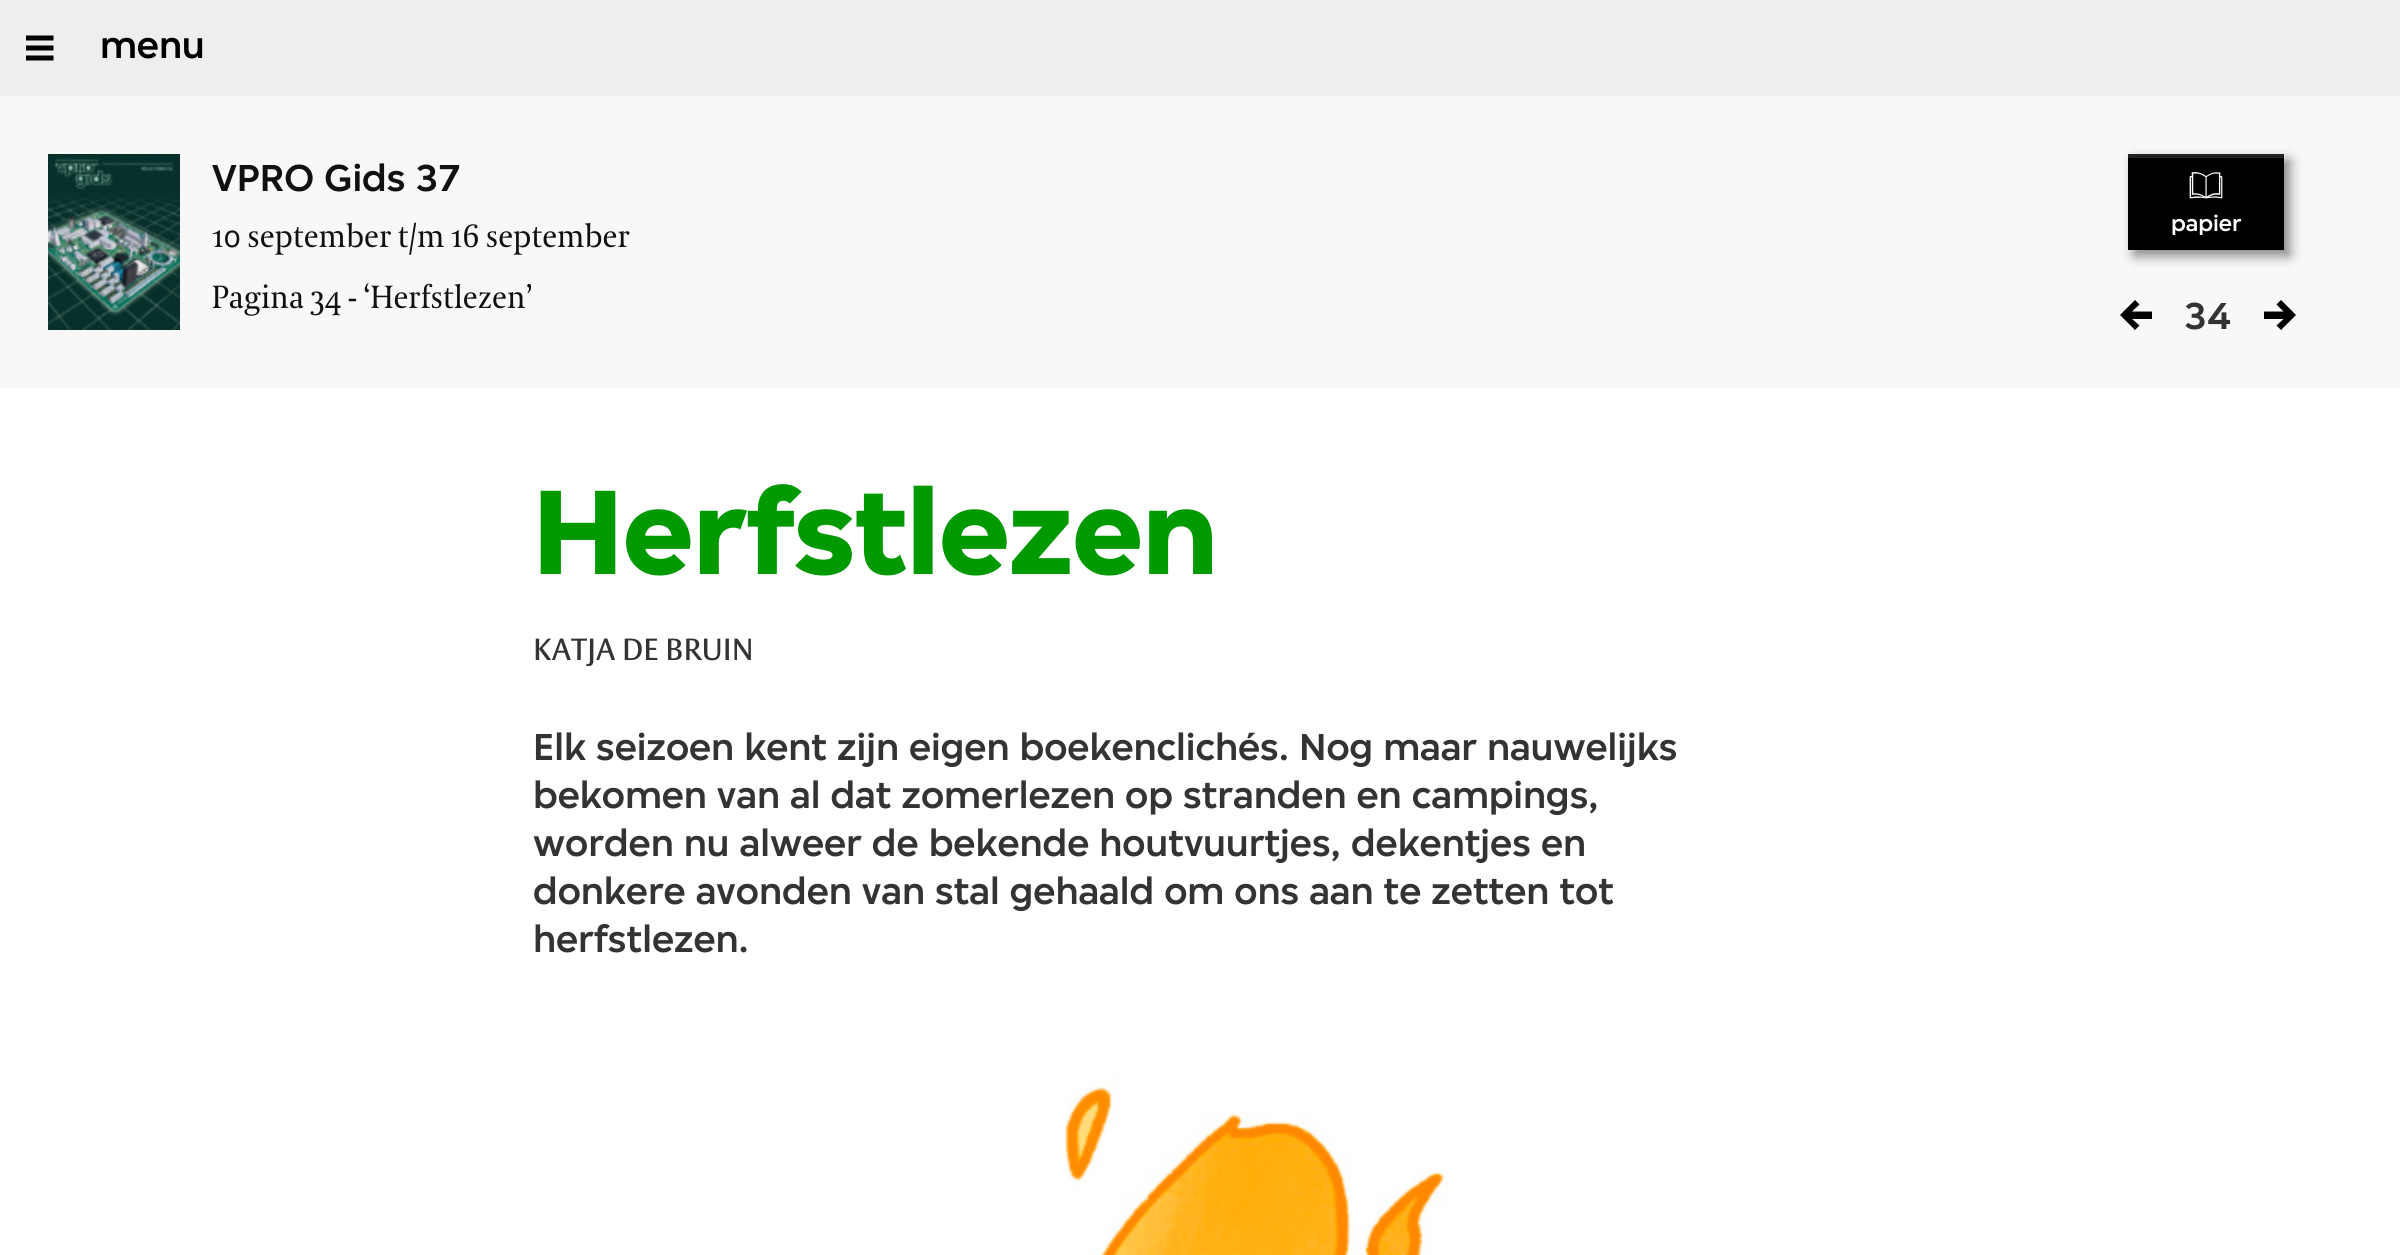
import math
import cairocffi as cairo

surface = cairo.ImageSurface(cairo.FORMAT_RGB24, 2400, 1255)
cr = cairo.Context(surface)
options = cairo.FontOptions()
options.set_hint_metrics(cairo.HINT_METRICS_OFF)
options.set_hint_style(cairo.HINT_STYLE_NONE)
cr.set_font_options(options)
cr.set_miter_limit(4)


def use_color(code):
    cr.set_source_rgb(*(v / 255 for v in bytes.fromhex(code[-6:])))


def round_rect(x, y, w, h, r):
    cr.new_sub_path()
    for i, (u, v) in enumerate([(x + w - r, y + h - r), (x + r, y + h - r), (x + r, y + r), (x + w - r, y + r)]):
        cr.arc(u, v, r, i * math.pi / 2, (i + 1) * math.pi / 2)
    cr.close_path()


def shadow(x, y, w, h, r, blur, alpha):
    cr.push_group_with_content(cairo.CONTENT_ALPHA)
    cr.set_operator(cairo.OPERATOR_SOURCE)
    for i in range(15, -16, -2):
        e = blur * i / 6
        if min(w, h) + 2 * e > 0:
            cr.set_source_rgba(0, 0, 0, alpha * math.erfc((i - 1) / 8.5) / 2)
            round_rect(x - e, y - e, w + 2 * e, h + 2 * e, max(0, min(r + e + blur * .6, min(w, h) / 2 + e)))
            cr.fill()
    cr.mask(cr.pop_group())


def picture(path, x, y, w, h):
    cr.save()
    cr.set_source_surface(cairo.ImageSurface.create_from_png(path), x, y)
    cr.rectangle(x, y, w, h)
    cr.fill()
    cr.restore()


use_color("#ffffff")
cr.paint()
use_color("#eeeeee")
cr.rectangle(0, 0, 2400, 96)
cr.fill()
picture("img1.png", 26, 35, 28, 26)
cr.select_font_face("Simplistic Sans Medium")
cr.set_font_size(40)
use_color("#000000")
cr.move_to(100, 58)
cr.show_text("menu")
use_color("#f8f8f8")
cr.rectangle(0, 96, 2400, 292)
cr.fill()
picture("img2.png", 48, 154, 132, 176)
use_color("#111111")
cr.move_to(212, 191)
cr.show_text("VPRO Gids 37")
cr.select_font_face("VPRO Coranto")
cr.set_font_size(32)
cr.move_to(212, 247)
cr.show_text("10 september t/m 16 september")
cr.move_to(212, 308)
cr.show_text("Pagina 34 - ‘Herfstlezen’")
use_color("#888888")
shadow(2134, 160, 156, 96, 0, 6, 1)
use_color("#000000")
cr.rectangle(2128, 158, 156, 92)
cr.fill()
use_color("#222222")
cr.rectangle(2128, 154, 156, 4)
cr.fill()
picture("img3.png", 2189, 172, 34, 27)
cr.select_font_face("Simplistic Sans Medium")
cr.set_font_size(24)
use_color("#ffffff")
cr.move_to(2171, 231)
cr.show_text("papier")
use_color("#000000")
cr.new_path()
cr.move_to(2135, 330)
cr.line_to(2120, 315)
cr.line_to(2135, 300)
cr.line_to(2139.5, 304.5)
cr.line_to(2132, 311.5)
cr.line_to(2152, 311.5)
cr.line_to(2152, 319)
cr.line_to(2132, 319)
cr.line_to(2139.5, 325.5)
cr.close_path()
cr.fill()
cr.set_font_size(40)
use_color("#333333")
cr.move_to(2184, 329)
cr.show_text("34")
use_color("#000000")
cr.new_path()
cr.move_to(2283.5, 319)
cr.line_to(2264, 319)
cr.line_to(2264, 311.5)
cr.line_to(2283.5, 311.5)
cr.line_to(2276.5, 304.5)
cr.line_to(2281, 300)
cr.line_to(2296, 315)
cr.line_to(2281, 330)
cr.line_to(2276.5, 325.5)
cr.close_path()
cr.fill()
cr.select_font_face("Simplistic Sans", cairo.FONT_SLANT_NORMAL, cairo.FONT_WEIGHT_BOLD)
cr.set_font_size(128)
use_color("#009900")
cr.move_to(533, 574)
cr.show_text("Herfstlezen")
cr.select_font_face("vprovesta")
cr.set_font_size(30)
use_color("#333333")
cr.move_to(533, 660)
cr.show_text("KATJA DE BRUIN")
cr.select_font_face("Simplistic Sans Medium")
cr.set_font_size(40)
cr.move_to(533, 760)
cr.show_text("Elk seizoen kent zijn eigen boekenclichés. Nog maar nauwelijks")
cr.move_to(533, 808)
cr.show_text("bekomen van al dat zomerlezen op stranden en campings,")
cr.move_to(533, 856)
cr.show_text("worden nu alweer de bekende houtvuurtjes, dekentjes en")
cr.move_to(533, 904)
cr.show_text("donkere avonden van stal gehaald om ons aan te zetten tot")
cr.move_to(533, 952)
cr.show_text("herfstlezen.")
picture("img4.png", 1064, 1076, 386, 179)
picture("img5.png", 1193, 1146, 2, 19)
surface.write_to_png("result.png")
